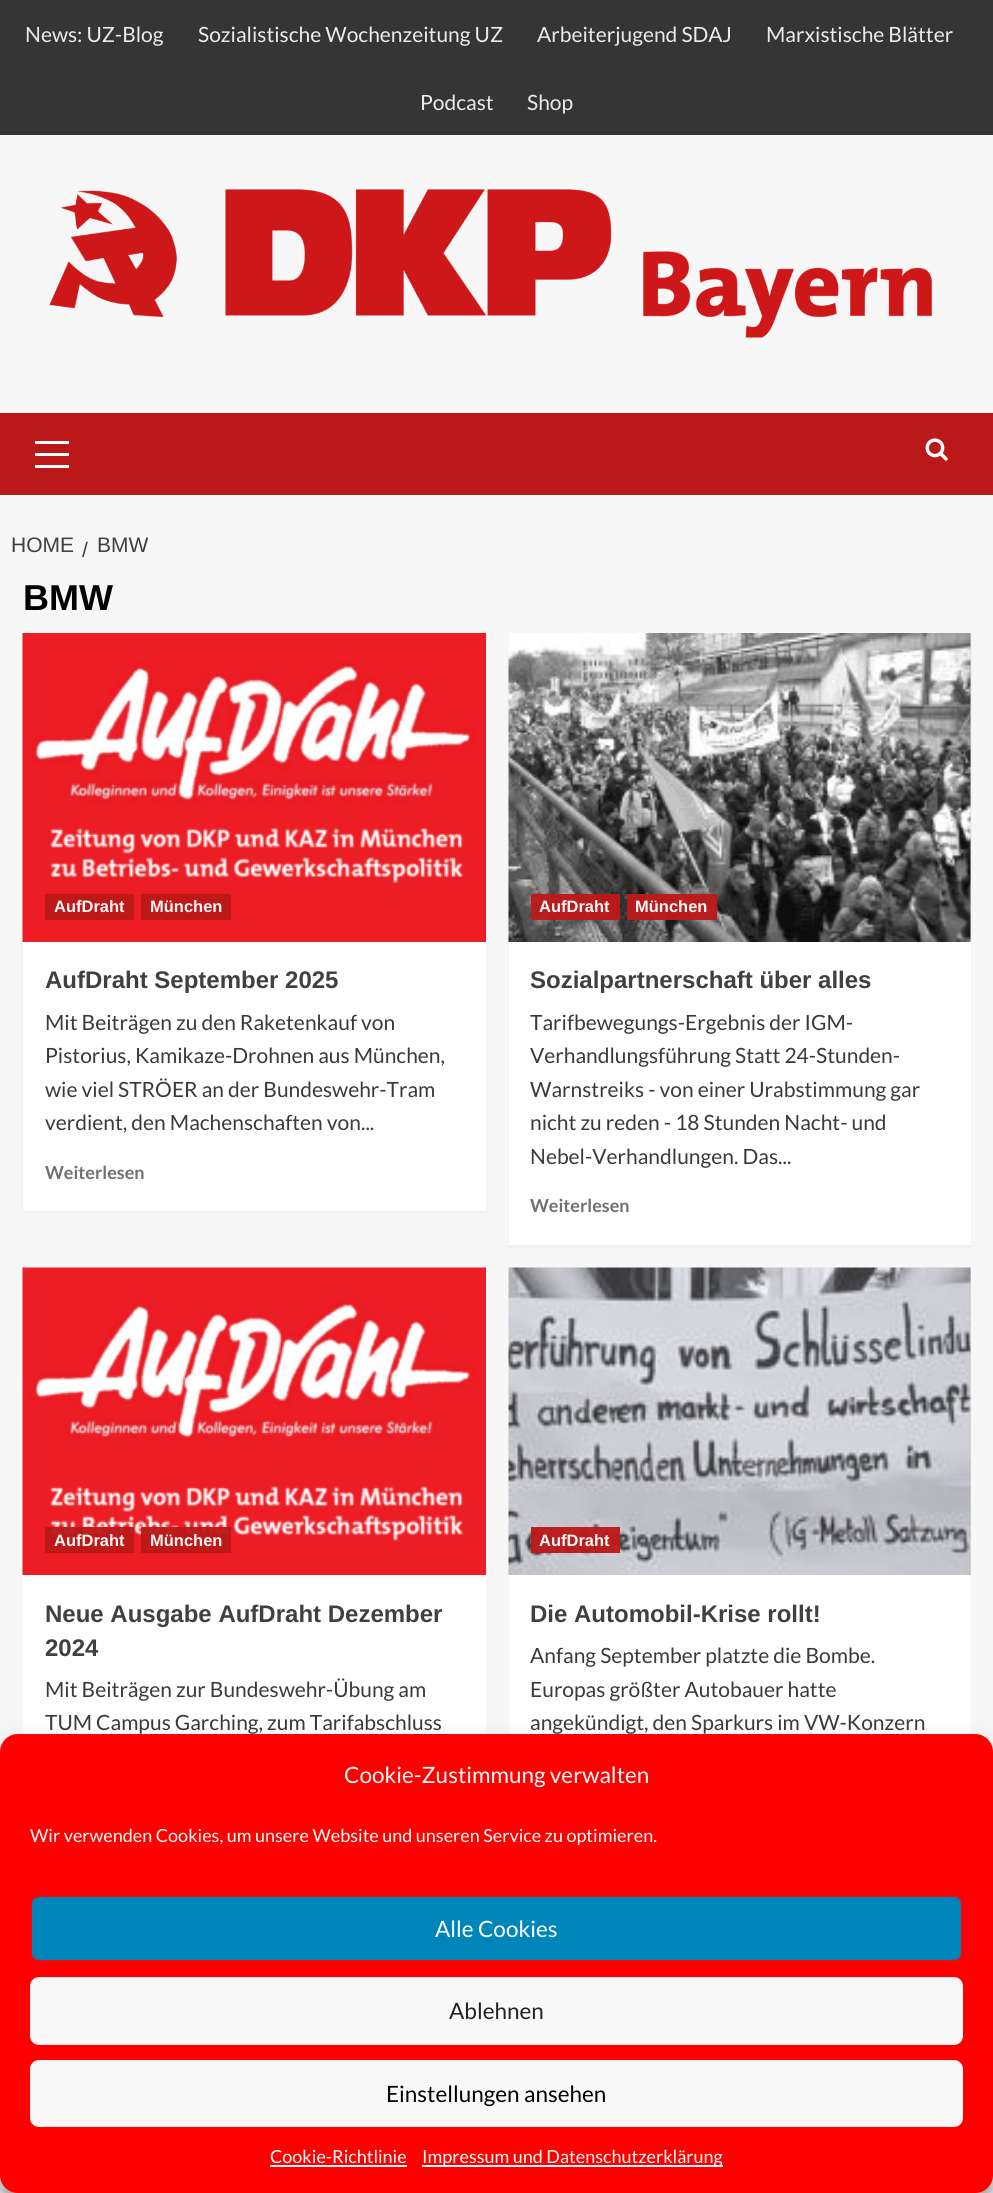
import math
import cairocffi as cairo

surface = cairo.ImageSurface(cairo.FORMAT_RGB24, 993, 2193)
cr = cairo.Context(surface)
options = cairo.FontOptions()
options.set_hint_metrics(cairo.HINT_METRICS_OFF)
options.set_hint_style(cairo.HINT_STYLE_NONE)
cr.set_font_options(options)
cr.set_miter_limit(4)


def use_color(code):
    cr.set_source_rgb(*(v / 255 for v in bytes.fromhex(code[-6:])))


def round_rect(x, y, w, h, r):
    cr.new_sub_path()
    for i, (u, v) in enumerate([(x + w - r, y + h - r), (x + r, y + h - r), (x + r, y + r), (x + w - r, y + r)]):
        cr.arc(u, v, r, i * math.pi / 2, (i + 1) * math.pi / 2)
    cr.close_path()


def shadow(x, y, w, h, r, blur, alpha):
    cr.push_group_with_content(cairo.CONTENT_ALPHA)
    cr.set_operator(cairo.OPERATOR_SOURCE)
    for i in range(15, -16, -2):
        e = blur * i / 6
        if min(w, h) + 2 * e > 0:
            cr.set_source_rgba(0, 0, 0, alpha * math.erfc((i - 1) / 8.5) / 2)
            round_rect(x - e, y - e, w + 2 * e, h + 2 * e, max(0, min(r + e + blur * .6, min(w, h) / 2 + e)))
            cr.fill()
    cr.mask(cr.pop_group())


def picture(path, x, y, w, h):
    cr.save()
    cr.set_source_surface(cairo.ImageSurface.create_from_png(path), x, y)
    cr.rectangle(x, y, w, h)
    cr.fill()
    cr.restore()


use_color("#f7f7f7")
cr.paint()
use_color("#353535")
cr.rectangle(0, 0, 993, 135)
cr.fill()
cr.select_font_face("Lato")
cr.set_font_size(21)
use_color("#ebebeb")
cr.move_to(25, 42)
cr.show_text("News: UZ-Blog")
cr.move_to(198, 42)
cr.show_text("Sozialistische Wochenzeitung UZ")
cr.move_to(537, 42)
cr.show_text("Arbeiterjugend SDAJ")
cr.move_to(766, 42)
cr.show_text("Marxistische Blätter")
cr.move_to(420, 110)
cr.show_text("Podcast")
cr.move_to(527, 110)
cr.show_text("Shop")
picture("img1.png", 49, 189, 884, 149)
use_color("#bb1919")
cr.rectangle(0, 413, 993, 82)
cr.fill()
use_color("#ffffff")
cr.rectangle(35, 453, 34, 3)
cr.fill()
cr.rectangle(35, 441, 34, 3)
cr.fill()
cr.rectangle(35, 465, 34, 3)
cr.fill()
picture("img2.png", 925, 438, 23, 23)
cr.select_font_face("Liberation Sans")
use_color("#404040")
cr.move_to(11, 552)
cr.show_text("HOME")
cr.move_to(82, 557)
cr.show_text("/")
cr.move_to(97, 552)
cr.show_text("BMW")
cr.select_font_face("Liberation Sans", cairo.FONT_SLANT_NORMAL, cairo.FONT_WEIGHT_BOLD)
cr.set_font_size(36)
use_color("#000000")
cr.move_to(23, 610)
cr.show_text("BMW")
use_color("#000000")
shadow(23, 635, 463, 577, 0, 1.5, 0.05)
use_color("#ffffff")
cr.rectangle(23, 942, 463, 269)
cr.fill()
picture("img3.png", 22, 633, 464, 309)
use_color("#bd1919")
cr.rectangle(45, 894, 89, 26)
cr.fill()
cr.set_font_size(16.5)
use_color("#fef6f6")
cr.move_to(54, 912)
cr.show_text("AufDraht")
use_color("#bd1919")
cr.rectangle(141, 894, 90, 26)
cr.fill()
use_color("#fef6f6")
cr.move_to(150, 912)
cr.show_text("München")
cr.set_font_size(24)
use_color("#404040")
cr.move_to(45, 988)
cr.show_text("AufDraht September 2025")
cr.select_font_face("Lato")
cr.set_font_size(21)
use_color("#3a3a3a")
cr.move_to(45, 1030)
cr.show_text("Mit Beiträgen zu den Raketenkauf von")
cr.move_to(45, 1063)
cr.show_text("Pistorius, Kamikaze-Drohnen aus München,")
cr.move_to(45, 1097)
cr.show_text("wie viel STRÖER an der Bundeswehr-Tram")
cr.move_to(45, 1130)
cr.show_text("verdient, den Machenschaften von...")
cr.select_font_face("Lato", cairo.FONT_SLANT_NORMAL, cairo.FONT_WEIGHT_BOLD)
cr.set_font_size(18)
use_color("#707070")
cr.move_to(45, 1179)
cr.show_text("Weiterlesen")
use_color("#000000")
shadow(509, 635, 462, 612, 0, 1.5, 0.05)
use_color("#ffffff")
cr.rectangle(509, 942, 462, 303)
cr.fill()
use_color("#d8d8d8")
cr.rectangle(970, 633, 1, 309)
cr.fill()
picture("img4.png", 508, 633, 463, 309)
cr.set_source_rgba(0.733, 0.098, 0.098, 0.96)
cr.rectangle(531, 894, 89, 26)
cr.fill()
cr.select_font_face("Liberation Sans", cairo.FONT_SLANT_NORMAL, cairo.FONT_WEIGHT_BOLD)
cr.set_font_size(16.5)
use_color("#fef6f6")
cr.move_to(539, 912)
cr.show_text("AufDraht")
cr.set_source_rgba(0.733, 0.098, 0.098, 0.96)
cr.rectangle(627, 894, 90, 26)
cr.fill()
use_color("#fef6f6")
cr.move_to(635, 912)
cr.show_text("München")
cr.set_font_size(24)
use_color("#404040")
cr.move_to(530, 988)
cr.show_text("Sozialpartnerschaft über alles")
cr.select_font_face("Lato")
cr.set_font_size(21)
use_color("#3a3a3a")
cr.move_to(530, 1030)
cr.show_text("Tarifbewegungs-Ergebnis der IGM-")
cr.move_to(530, 1063)
cr.show_text("Verhandlungsführung Statt 24-Stunden-")
cr.move_to(530, 1097)
cr.show_text("Warnstreiks - von einer Urabstimmung gar")
cr.move_to(530, 1130)
cr.show_text("nicht zu reden - 18 Stunden Nacht- und")
cr.move_to(530, 1164)
cr.show_text("Nebel-Verhandlungen. Das...")
cr.select_font_face("Lato", cairo.FONT_SLANT_NORMAL, cairo.FONT_WEIGHT_BOLD)
cr.set_font_size(18)
use_color("#707070")
cr.move_to(530, 1212)
cr.show_text("Weiterlesen")
use_color("#ffffff")
cr.rectangle(23, 1575, 463, 159)
cr.fill()
picture("img5.png", 22, 1267, 464, 308)
cr.set_source_rgba(0.733, 0.098, 0.098, 0.96)
cr.rectangle(45, 1527, 89, 26)
cr.fill()
cr.select_font_face("Liberation Sans", cairo.FONT_SLANT_NORMAL, cairo.FONT_WEIGHT_BOLD)
cr.set_font_size(16.5)
use_color("#fef6f6")
cr.move_to(54, 1546)
cr.show_text("AufDraht")
cr.set_source_rgba(0.733, 0.098, 0.098, 0.96)
cr.rectangle(141, 1527, 90, 26)
cr.fill()
use_color("#fef6f6")
cr.move_to(150, 1546)
cr.show_text("München")
cr.set_font_size(24)
use_color("#404040")
cr.move_to(45, 1622)
cr.show_text("Neue Ausgabe AufDraht Dezember")
cr.move_to(45, 1656)
cr.show_text("2024")
cr.select_font_face("Lato")
cr.set_font_size(21)
use_color("#3a3a3a")
cr.move_to(45, 1697)
cr.show_text("Mit Beiträgen zur Bundeswehr-Übung am")
cr.move_to(45, 1730)
cr.show_text("TUM Campus Garching, zum Tarifabschluss")
use_color("#ffffff")
cr.rectangle(509, 1575, 462, 159)
cr.fill()
use_color("#d8d8d8")
cr.rectangle(970, 1268, 1, 307)
cr.fill()
picture("img6.png", 508, 1267, 463, 308)
cr.set_source_rgba(0.733, 0.098, 0.098, 0.96)
cr.rectangle(531, 1527, 89, 26)
cr.fill()
cr.select_font_face("Liberation Sans", cairo.FONT_SLANT_NORMAL, cairo.FONT_WEIGHT_BOLD)
cr.set_font_size(16.5)
use_color("#fef6f6")
cr.move_to(539, 1546)
cr.show_text("AufDraht")
cr.set_font_size(24)
use_color("#404040")
cr.move_to(530, 1622)
cr.show_text("Die Automobil-Krise rollt!")
cr.select_font_face("Lato")
cr.set_font_size(21)
use_color("#3a3a3a")
cr.move_to(530, 1663)
cr.show_text("Anfang September platzte die Bombe.")
cr.move_to(530, 1697)
cr.show_text("Europas größter Autobauer hatte")
cr.move_to(530, 1730)
cr.show_text("angekündigt, den Sparkurs im VW-Konzern")
use_color("#000000")
shadow(0, 1743, 993, 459, 18, 4.5, 0.23)
shadow(0, 1749, 993, 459, 18, 15, 0.19)
use_color("#ff0000")
round_rect(0, 1734, 993, 459, 18)
cr.fill()
cr.set_font_size(22.5)
use_color("#ffffff")
cr.move_to(344, 1783)
cr.show_text("Cookie-Zustimmung verwalten")
cr.set_font_size(18)
cr.move_to(30, 1842)
cr.show_text("Wir verwenden Cookies, um unsere Website und unseren Service zu optimieren.")
use_color("#0085ba")
round_rect(31, 1896, 931, 65, 8)
cr.fill_preserve()
use_color("#f1090d")
cr.stroke()
cr.set_font_size(22.5)
use_color("#ffffff")
cr.move_to(435, 1937)
cr.show_text("Alle Cookies")
use_color("#f9f9f9")
round_rect(31, 1978, 931, 66, 8)
cr.fill_preserve()
use_color("#f2f2f2")
cr.stroke()
use_color("#222222")
cr.move_to(449, 2019)
cr.show_text("Ablehnen")
use_color("#f9f9f9")
round_rect(31, 2061, 931, 65, 8)
cr.fill_preserve()
use_color("#f2f2f2")
cr.stroke()
use_color("#000000")
cr.move_to(386, 2102)
cr.show_text("Einstellungen ansehen")
cr.set_font_size(18)
use_color("#ffffff")
cr.move_to(270, 2163)
cr.show_text("Cookie-Richtlinie")
cr.rectangle(270, 2165, 137, 2)
cr.fill()
cr.rectangle(422, 2165, 301, 2)
cr.fill()
cr.move_to(422, 2163)
cr.show_text("Impressum und Datenschutzerklärung")
surface.write_to_png("result.png")
